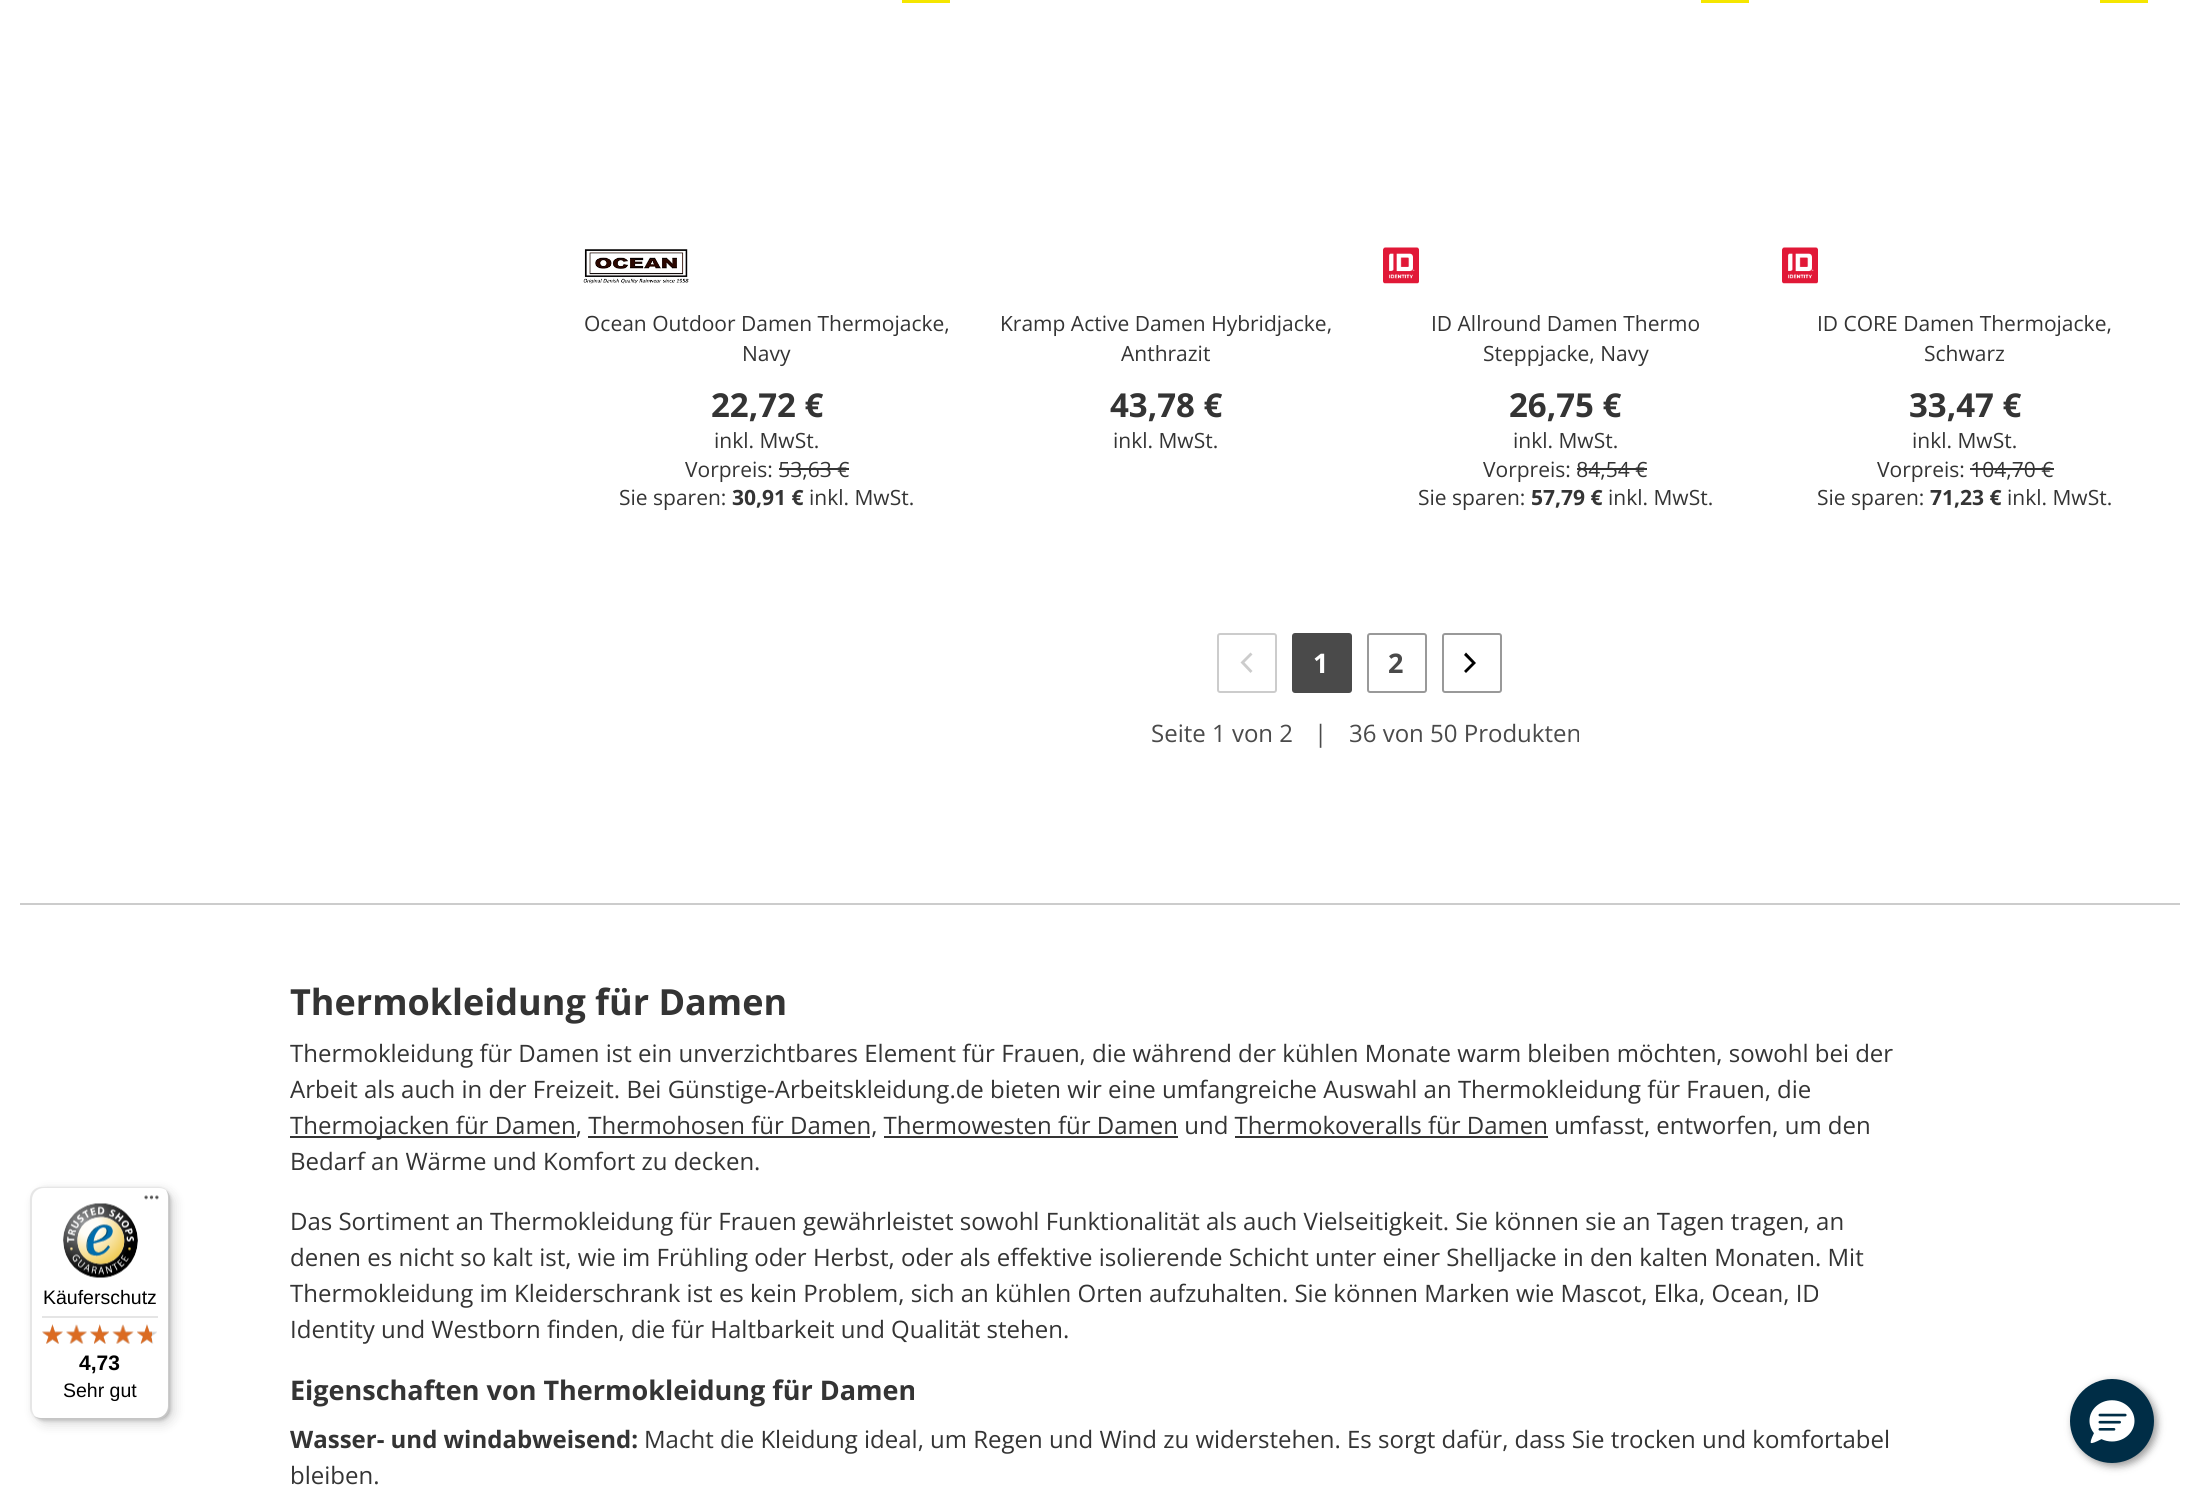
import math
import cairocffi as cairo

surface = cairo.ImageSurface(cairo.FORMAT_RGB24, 2199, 1499)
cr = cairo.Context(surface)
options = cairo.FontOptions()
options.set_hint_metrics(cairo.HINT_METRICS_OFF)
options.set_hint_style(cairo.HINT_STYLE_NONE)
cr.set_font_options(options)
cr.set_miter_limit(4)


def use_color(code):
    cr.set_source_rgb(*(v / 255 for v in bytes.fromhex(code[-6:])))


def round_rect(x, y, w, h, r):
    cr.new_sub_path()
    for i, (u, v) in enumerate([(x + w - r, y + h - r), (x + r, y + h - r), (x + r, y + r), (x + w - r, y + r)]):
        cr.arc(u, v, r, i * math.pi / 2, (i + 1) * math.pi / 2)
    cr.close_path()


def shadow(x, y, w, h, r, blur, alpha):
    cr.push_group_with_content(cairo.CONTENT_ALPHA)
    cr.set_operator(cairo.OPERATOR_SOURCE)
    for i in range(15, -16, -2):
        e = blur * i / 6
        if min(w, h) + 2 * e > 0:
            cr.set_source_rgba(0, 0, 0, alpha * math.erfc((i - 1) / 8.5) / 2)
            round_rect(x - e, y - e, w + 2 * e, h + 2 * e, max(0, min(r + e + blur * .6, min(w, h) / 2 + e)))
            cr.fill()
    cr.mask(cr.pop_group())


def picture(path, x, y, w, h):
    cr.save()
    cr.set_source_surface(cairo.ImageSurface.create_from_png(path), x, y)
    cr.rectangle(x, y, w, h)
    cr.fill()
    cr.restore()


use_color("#ffffff")
cr.paint()
use_color("#000000")
shadow(35, 1191, 139, 233, 12, 6, 0.15)
shadow(32, 1188, 139, 233, 12, 1.5, 0.15)
use_color("#ffffff")
round_rect(30, 1187, 140, 232, 12)
cr.fill()
cr.set_source_rgba(0, 0, 0, 0.1)
cr.new_path()
cr.move_to(44, 1188)
cr.line_to(159, 1188)
cr.curve_to(162, 1188, 164, 1189, 166, 1190)
cr.curve_to(164, 1188, 161, 1187, 158, 1187)
cr.line_to(42, 1187)
cr.curve_to(35, 1187, 30, 1192, 30, 1199)
cr.line_to(30, 1407)
cr.curve_to(30, 1412, 33, 1416, 37, 1418)
cr.curve_to(34, 1416, 32, 1412, 32, 1408)
cr.line_to(32, 1200)
cr.curve_to(32, 1193, 37, 1188, 44, 1188)
cr.close_path()
cr.fill()
cr.set_source_rgba(0, 0, 0, 0.2)
cr.new_path()
cr.move_to(35, 1416)
cr.curve_to(37, 1418, 39, 1419, 42, 1419)
cr.line_to(158, 1419)
cr.curve_to(165, 1419, 170, 1414, 170, 1407)
cr.line_to(170, 1199)
cr.curve_to(170, 1195, 168, 1192, 166, 1190)
cr.curve_to(167, 1192, 168, 1194, 168, 1197)
cr.line_to(168, 1406)
cr.curve_to(168, 1412, 163, 1418, 156, 1418)
cr.line_to(40, 1418)
cr.curve_to(38, 1418, 36, 1417, 35, 1416)
cr.close_path()
cr.fill()
cr.set_source_rgba(0.196, 0.196, 0.196, 0.2)
cr.new_path()
cr.move_to(34, 1416)
cr.curve_to(36, 1418, 39, 1419, 42, 1419)
cr.line_to(158, 1419)
cr.curve_to(165, 1419, 170, 1414, 170, 1407)
cr.line_to(170, 1199)
cr.curve_to(170, 1195, 168, 1192, 166, 1190)
cr.curve_to(168, 1192, 169, 1195, 169, 1198)
cr.line_to(169, 1406)
cr.curve_to(169, 1413, 163, 1418, 157, 1418)
cr.line_to(41, 1418)
cr.curve_to(38, 1418, 36, 1417, 34, 1416)
cr.close_path()
cr.fill()
cr.set_source_rgba(1, 1, 1, 0.3)
cr.new_path()
cr.move_to(33, 1415)
cr.curve_to(35, 1417, 38, 1419, 42, 1419)
cr.line_to(158, 1419)
cr.curve_to(165, 1419, 170, 1414, 170, 1407)
cr.line_to(170, 1199)
cr.curve_to(170, 1195, 168, 1192, 166, 1190)
cr.curve_to(168, 1192, 169, 1195, 169, 1198)
cr.line_to(169, 1406)
cr.curve_to(169, 1413, 163, 1418, 157, 1418)
cr.line_to(41, 1418)
cr.curve_to(38, 1418, 35, 1417, 33, 1415)
cr.close_path()
cr.fill()
picture("img1.png", 144, 1195, 15, 5)
picture("img2.png", 63, 1203, 75, 75)
cr.select_font_face("Liberation Sans")
cr.set_font_size(19.5)
use_color("#000000")
cr.move_to(43, 1304)
cr.show_text("Käuferschutz")
use_color("#e5e5e5")
cr.rectangle(42, 1316, 116, 2)
cr.fill()
picture("img3.png", 42, 1324, 21, 20)
picture("img4.png", 66, 1325, 21, 19)
picture("img5.png", 90, 1324, 19, 20)
picture("img6.png", 113, 1325, 20, 19)
picture("img7.png", 137, 1324, 20, 20)
picture("img8.png", 42, 1324, 21, 20)
picture("img9.png", 66, 1324, 21, 20)
picture("img10.png", 90, 1324, 19, 20)
picture("img11.png", 112, 1324, 22, 20)
picture("img12.png", 137, 1324, 15, 20)
cr.select_font_face("Liberation Sans", cairo.FONT_SLANT_NORMAL, cairo.FONT_WEIGHT_BOLD)
cr.set_font_size(21)
use_color("#000000")
cr.move_to(79, 1370)
cr.show_text("4,73")
cr.select_font_face("Liberation Sans")
cr.set_font_size(19.5)
cr.move_to(63, 1397)
cr.show_text("Sehr gut")
use_color("#f5e600")
cr.rectangle(902, 0, 48, 3)
cr.fill()
picture("img13.png", 583, 249, 106, 35)
cr.select_font_face("Open Sans")
cr.set_font_size(21)
use_color("#343434")
cr.move_to(584, 331)
cr.show_text("Ocean Outdoor Damen Thermojacke,")
cr.move_to(742, 361)
cr.show_text("Navy")
cr.select_font_face("Open Sans", cairo.FONT_SLANT_NORMAL, cairo.FONT_WEIGHT_BOLD)
cr.set_font_size(33)
cr.move_to(711, 417)
cr.show_text("22,72 €")
cr.select_font_face("Open Sans")
cr.set_font_size(21)
cr.move_to(714, 448)
cr.show_text("inkl. MwSt.")
cr.move_to(685, 477)
cr.show_text("Vorpreis: 53,63 €")
cr.rectangle(779, 468, 70, 2)
cr.fill()
cr.move_to(619, 505)
cr.show_text("Sie sparen:")
cr.select_font_face("Open Sans", cairo.FONT_SLANT_NORMAL, cairo.FONT_WEIGHT_BOLD)
cr.move_to(732, 505)
cr.show_text("30,91 €")
cr.select_font_face("Open Sans")
cr.move_to(809, 505)
cr.show_text("inkl. MwSt.")
cr.move_to(1000, 331)
cr.show_text("Kramp Active Damen Hybridjacke,")
cr.move_to(1121, 361)
cr.show_text("Anthrazit")
cr.select_font_face("Open Sans", cairo.FONT_SLANT_NORMAL, cairo.FONT_WEIGHT_BOLD)
cr.set_font_size(33)
cr.move_to(1110, 417)
cr.show_text("43,78 €")
cr.select_font_face("Open Sans")
cr.set_font_size(21)
cr.move_to(1113, 448)
cr.show_text("inkl. MwSt.")
use_color("#f5e600")
cr.rectangle(1701, 0, 48, 3)
cr.fill()
picture("img14.png", 1383, 247, 36, 37)
use_color("#343434")
cr.move_to(1431, 331)
cr.show_text("ID Allround Damen Thermo")
cr.move_to(1483, 361)
cr.show_text("Steppjacke, Navy")
cr.select_font_face("Open Sans", cairo.FONT_SLANT_NORMAL, cairo.FONT_WEIGHT_BOLD)
cr.set_font_size(33)
cr.move_to(1509, 417)
cr.show_text("26,75 €")
cr.select_font_face("Open Sans")
cr.set_font_size(21)
cr.move_to(1513, 448)
cr.show_text("inkl. MwSt.")
cr.move_to(1483, 477)
cr.show_text("Vorpreis: 84,54 €")
cr.rectangle(1577, 468, 70, 2)
cr.fill()
cr.move_to(1418, 505)
cr.show_text("Sie sparen:")
cr.select_font_face("Open Sans", cairo.FONT_SLANT_NORMAL, cairo.FONT_WEIGHT_BOLD)
cr.move_to(1531, 505)
cr.show_text("57,79 €")
cr.select_font_face("Open Sans")
cr.move_to(1608, 505)
cr.show_text("inkl. MwSt.")
use_color("#f5e600")
cr.rectangle(2100, 0, 48, 3)
cr.fill()
picture("img14.png", 1782, 247, 36, 37)
use_color("#343434")
cr.move_to(1817, 331)
cr.show_text("ID CORE Damen Thermojacke,")
cr.move_to(1924, 361)
cr.show_text("Schwarz")
cr.select_font_face("Open Sans", cairo.FONT_SLANT_NORMAL, cairo.FONT_WEIGHT_BOLD)
cr.set_font_size(33)
cr.move_to(1909, 417)
cr.show_text("33,47 €")
cr.select_font_face("Open Sans")
cr.set_font_size(21)
cr.move_to(1912, 448)
cr.show_text("inkl. MwSt.")
cr.move_to(1877, 477)
cr.show_text("Vorpreis: 104,70 €")
cr.rectangle(1970, 468, 84, 2)
cr.fill()
cr.move_to(1817, 505)
cr.show_text("Sie sparen:")
cr.select_font_face("Open Sans", cairo.FONT_SLANT_NORMAL, cairo.FONT_WEIGHT_BOLD)
cr.move_to(1930, 505)
cr.show_text("71,23 €")
cr.select_font_face("Open Sans")
cr.move_to(2007, 505)
cr.show_text("inkl. MwSt.")
round_rect(1218, 634, 58, 58, 2)
use_color("#cccccc")
cr.stroke()
cr.new_path()
cr.move_to(1252.5, 654.5)
cr.line_to(1250.5, 652.5)
cr.line_to(1240.5, 662.5)
cr.line_to(1250.5, 673)
cr.line_to(1252.5, 671)
cr.line_to(1244.5, 662.5)
cr.close_path()
cr.fill()
use_color("#4a4a4a")
round_rect(1293, 634, 58, 58, 2)
cr.fill_preserve()
cr.stroke()
cr.select_font_face("Open Sans", cairo.FONT_SLANT_NORMAL, cairo.FONT_WEIGHT_BOLD)
cr.set_font_size(27)
use_color("#ffffff")
cr.move_to(1313, 673)
cr.show_text("1")
round_rect(1368, 634, 58, 58, 2)
use_color("#999999")
cr.stroke()
use_color("#4a4a4a")
cr.move_to(1388, 673)
cr.show_text("2")
round_rect(1443, 634, 58, 58, 2)
use_color("#999999")
cr.stroke()
use_color("#000000")
cr.new_path()
cr.move_to(1464, 671)
cr.line_to(1466, 673)
cr.line_to(1476, 663)
cr.line_to(1466, 652.5)
cr.line_to(1464, 655)
cr.line_to(1472, 663)
cr.close_path()
cr.fill()
cr.select_font_face("Open Sans")
cr.set_font_size(24)
use_color("#4a4a4a")
cr.move_to(1151, 742)
cr.show_text("Seite 1 von 2")
cr.move_to(1314, 742)
cr.show_text("|")
cr.move_to(1349, 742)
cr.show_text("36 von 50 Produkten")
use_color("#cccccc")
cr.rectangle(20, 903, 2160, 2)
cr.fill()
cr.select_font_face("Open Sans", cairo.FONT_SLANT_NORMAL, cairo.FONT_WEIGHT_BOLD)
cr.set_font_size(36)
use_color("#343434")
cr.move_to(290, 1015)
cr.show_text("Thermokleidung für Damen")
cr.select_font_face("Open Sans")
cr.set_font_size(24)
cr.move_to(290, 1062)
cr.show_text("Thermokleidung für Damen ist ein unverzichtbares Element für Frauen, die während der kühlen Monate warm bleiben möchten, sowohl bei der")
cr.move_to(290, 1098)
cr.show_text("Arbeit als auch in der Freizeit. Bei Günstige-Arbeitskleidung.de bieten wir eine umfangreiche Auswahl an Thermokleidung für Frauen, die")
cr.rectangle(290, 1136, 286, 2)
cr.fill()
cr.move_to(290, 1134)
cr.show_text("Thermojacken für Damen, Thermohosen für Damen, Thermowesten für Damen und Thermokoveralls für Damen umfasst, entworfen, um den")
cr.rectangle(588, 1136, 282, 2)
cr.fill()
cr.rectangle(884, 1136, 294, 2)
cr.fill()
cr.rectangle(1235, 1136, 313, 2)
cr.fill()
cr.move_to(290, 1170)
cr.show_text("Bedarf an Wärme und Komfort zu decken.")
cr.move_to(290, 1230)
cr.show_text("Das Sortiment an Thermokleidung für Frauen gewährleistet sowohl Funktionalität als auch Vielseitigkeit. Sie können sie an Tagen tragen, an")
cr.move_to(290, 1266)
cr.show_text("denen es nicht so kalt ist, wie im Frühling oder Herbst, oder als effektive isolierende Schicht unter einer Shelljacke in den kalten Monaten. Mit")
cr.move_to(290, 1302)
cr.show_text("Thermokleidung im Kleiderschrank ist es kein Problem, sich an kühlen Orten aufzuhalten. Sie können Marken wie Mascot, Elka, Ocean, ID")
cr.move_to(290, 1338)
cr.show_text("Identity und Westborn finden, die für Haltbarkeit und Qualität stehen.")
cr.select_font_face("Open Sans", cairo.FONT_SLANT_NORMAL, cairo.FONT_WEIGHT_BOLD)
cr.set_font_size(27)
cr.move_to(290, 1400)
cr.show_text("Eigenschaften von Thermokleidung für Damen")
cr.set_font_size(24)
cr.move_to(290, 1448)
cr.show_text("Wasser- und windabweisend:")
cr.select_font_face("Open Sans")
cr.move_to(644, 1448)
cr.show_text("Macht die Kleidung ideal, um Regen und Wind zu widerstehen. Es sorgt dafür, dass Sie trocken und komfortabel")
cr.move_to(290, 1484)
cr.show_text("bleiben.")
use_color("#2d2d2d")
shadow(2073, 1382, 84, 84, 42, 4, 0.5)
use_color("#002d46")
cr.arc(2112, 1421, 42, 0, 2 * math.pi)
cr.fill()
picture("img15.png", 2089, 1400, 46, 44)
surface.write_to_png("result.png")
